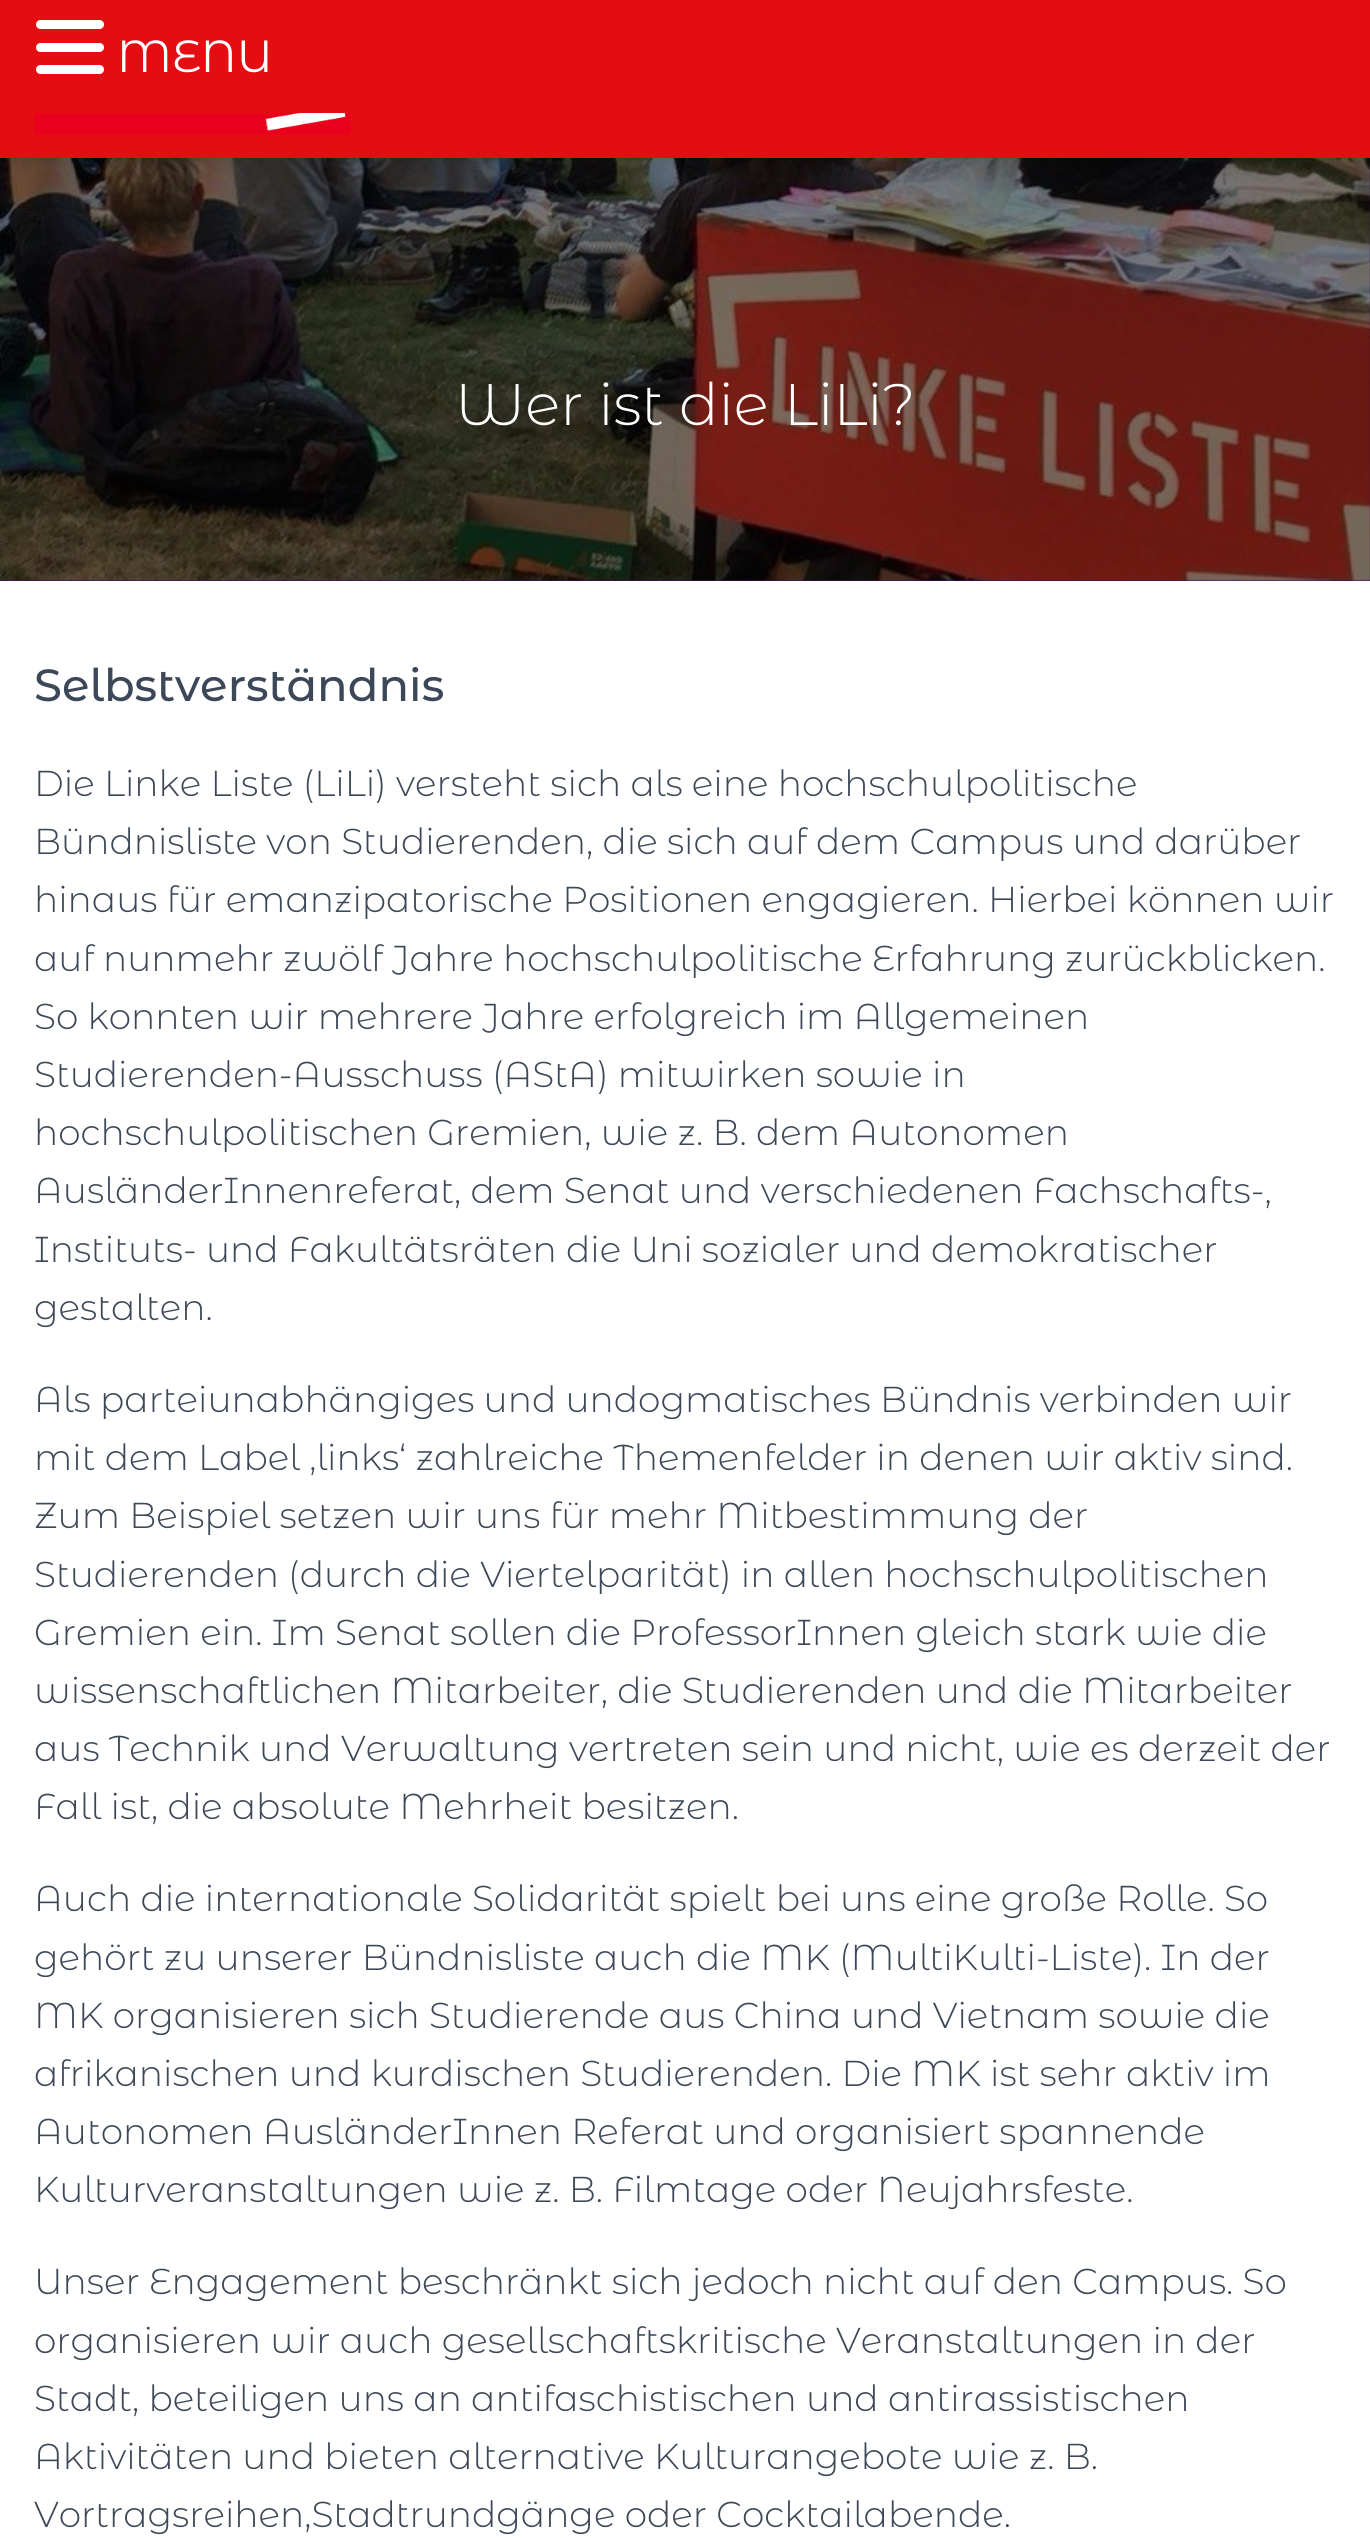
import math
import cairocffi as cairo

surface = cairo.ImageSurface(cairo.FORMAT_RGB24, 1370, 2538)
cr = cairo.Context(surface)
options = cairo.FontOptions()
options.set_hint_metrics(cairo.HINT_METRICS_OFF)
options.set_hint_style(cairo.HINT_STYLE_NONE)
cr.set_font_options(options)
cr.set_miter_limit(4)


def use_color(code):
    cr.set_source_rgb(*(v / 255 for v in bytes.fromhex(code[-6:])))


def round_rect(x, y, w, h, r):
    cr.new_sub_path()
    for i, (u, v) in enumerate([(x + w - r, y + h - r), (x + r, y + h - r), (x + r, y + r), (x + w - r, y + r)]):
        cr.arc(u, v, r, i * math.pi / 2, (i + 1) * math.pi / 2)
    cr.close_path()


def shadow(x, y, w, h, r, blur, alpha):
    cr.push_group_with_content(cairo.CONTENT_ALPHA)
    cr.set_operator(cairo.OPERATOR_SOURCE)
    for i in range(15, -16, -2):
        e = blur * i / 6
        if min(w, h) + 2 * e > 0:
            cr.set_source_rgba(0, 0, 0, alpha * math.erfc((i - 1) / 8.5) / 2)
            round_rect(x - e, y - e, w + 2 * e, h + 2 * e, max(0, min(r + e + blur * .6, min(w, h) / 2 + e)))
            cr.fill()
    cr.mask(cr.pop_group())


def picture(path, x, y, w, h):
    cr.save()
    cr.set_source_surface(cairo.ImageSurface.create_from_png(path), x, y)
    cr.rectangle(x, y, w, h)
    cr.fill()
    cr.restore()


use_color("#3c0b6a")
cr.paint()
picture("img2.png", 0, 158, 1370, 423)
use_color("#000000")
shadow(9, 23, 1352, 139, 0, 11, 0.15)
use_color("#e30d12")
cr.rectangle(0, 0, 1370, 158)
cr.fill()
use_color("#ffffff")
round_rect(36, 20, 68, 9, 4.5)
cr.fill()
round_rect(36, 43, 68, 9, 4.5)
cr.fill()
round_rect(36, 65, 68, 9, 4.5)
cr.fill()
cr.select_font_face("Montserrat Alternates")
cr.set_font_size(45)
cr.move_to(117, 72)
cr.show_text("MENU")
picture("img1.png", 34, 113, 317, 22)
cr.select_font_face("Montserrat Alternates Light")
cr.set_font_size(58.5)
cr.move_to(455, 425)
cr.show_text("Wer ist die LiLi?")
cr.rectangle(0, 581, 1370, 1957)
cr.fill()
cr.select_font_face("Montserrat Alternates Medium")
cr.set_font_size(45)
use_color("#3c4858")
cr.move_to(34, 701)
cr.show_text("Selbstverständnis")
cr.select_font_face("Montserrat Alternates Light")
cr.set_font_size(36)
cr.move_to(34, 796)
cr.show_text("Die Linke Liste (LiLi) versteht sich als eine hochschulpolitische")
cr.move_to(34, 854)
cr.show_text("Bündnisliste von Studierenden, die sich auf dem Campus und darüber")
cr.move_to(34, 912)
cr.show_text("hinaus für emanzipatorische Positionen engagieren. Hierbei können wir")
cr.move_to(34, 971)
cr.show_text("auf nunmehr zwölf Jahre hochschulpolitische Erfahrung zurückblicken.")
cr.move_to(34, 1029)
cr.show_text("So konnten wir mehrere Jahre erfolgreich im Allgemeinen")
cr.move_to(34, 1087)
cr.show_text("Studierenden-Ausschuss (AStA) mitwirken sowie in")
cr.move_to(34, 1145)
cr.show_text("hochschulpolitischen Gremien, wie z. B. dem Autonomen")
cr.move_to(34, 1203)
cr.show_text("AusländerInnenreferat, dem Senat und verschiedenen Fachschafts-,")
cr.move_to(34, 1262)
cr.show_text("Instituts- und Fakultätsräten die Uni sozialer und demokratischer")
cr.move_to(34, 1320)
cr.show_text("gestalten.")
cr.move_to(34, 1412)
cr.show_text("Als parteiunabhängiges und undogmatisches Bündnis verbinden wir")
cr.move_to(34, 1470)
cr.show_text("mit dem Label ‚links‘ zahlreiche Themenfelder in denen wir aktiv sind.")
cr.move_to(34, 1528)
cr.show_text("Zum Beispiel setzen wir uns für mehr Mitbestimmung der")
cr.move_to(34, 1587)
cr.show_text("Studierenden (durch die Viertelparität) in allen hochschulpolitischen")
cr.move_to(34, 1645)
cr.show_text("Gremien ein. Im Senat sollen die ProfessorInnen gleich stark wie die")
cr.move_to(34, 1703)
cr.show_text("wissenschaftlichen Mitarbeiter, die Studierenden und die Mitarbeiter")
cr.move_to(34, 1761)
cr.show_text("aus Technik und Verwaltung vertreten sein und nicht, wie es derzeit der")
cr.move_to(34, 1819)
cr.show_text("Fall ist, die absolute Mehrheit besitzen.")
cr.move_to(34, 1911)
cr.show_text("Auch die internationale Solidarität spielt bei uns eine große Rolle. So")
cr.move_to(34, 1970)
cr.show_text("gehört zu unserer Bündnisliste auch die MK (MultiKulti-Liste). In der")
cr.move_to(34, 2028)
cr.show_text("MK organisieren sich Studierende aus China und Vietnam sowie die")
cr.move_to(34, 2086)
cr.show_text("afrikanischen und kurdischen Studierenden. Die MK ist sehr aktiv im")
cr.move_to(34, 2144)
cr.show_text("Autonomen AusländerInnen Referat und organisiert spannende")
cr.move_to(34, 2202)
cr.show_text("Kulturveranstaltungen wie z. B. Filmtage oder Neujahrsfeste.")
cr.move_to(34, 2294)
cr.show_text("Unser Engagement beschränkt sich jedoch nicht auf den Campus. So")
cr.move_to(34, 2353)
cr.show_text("organisieren wir auch gesellschaftskritische Veranstaltungen in der")
cr.move_to(34, 2411)
cr.show_text("Stadt, beteiligen uns an antifaschistischen und antirassistischen")
cr.move_to(34, 2469)
cr.show_text("Aktivitäten und bieten alternative Kulturangebote wie z. B.")
cr.move_to(34, 2527)
cr.show_text("Vortragsreihen,Stadtrundgänge oder Cocktailabende.")
surface.write_to_png("result.png")
